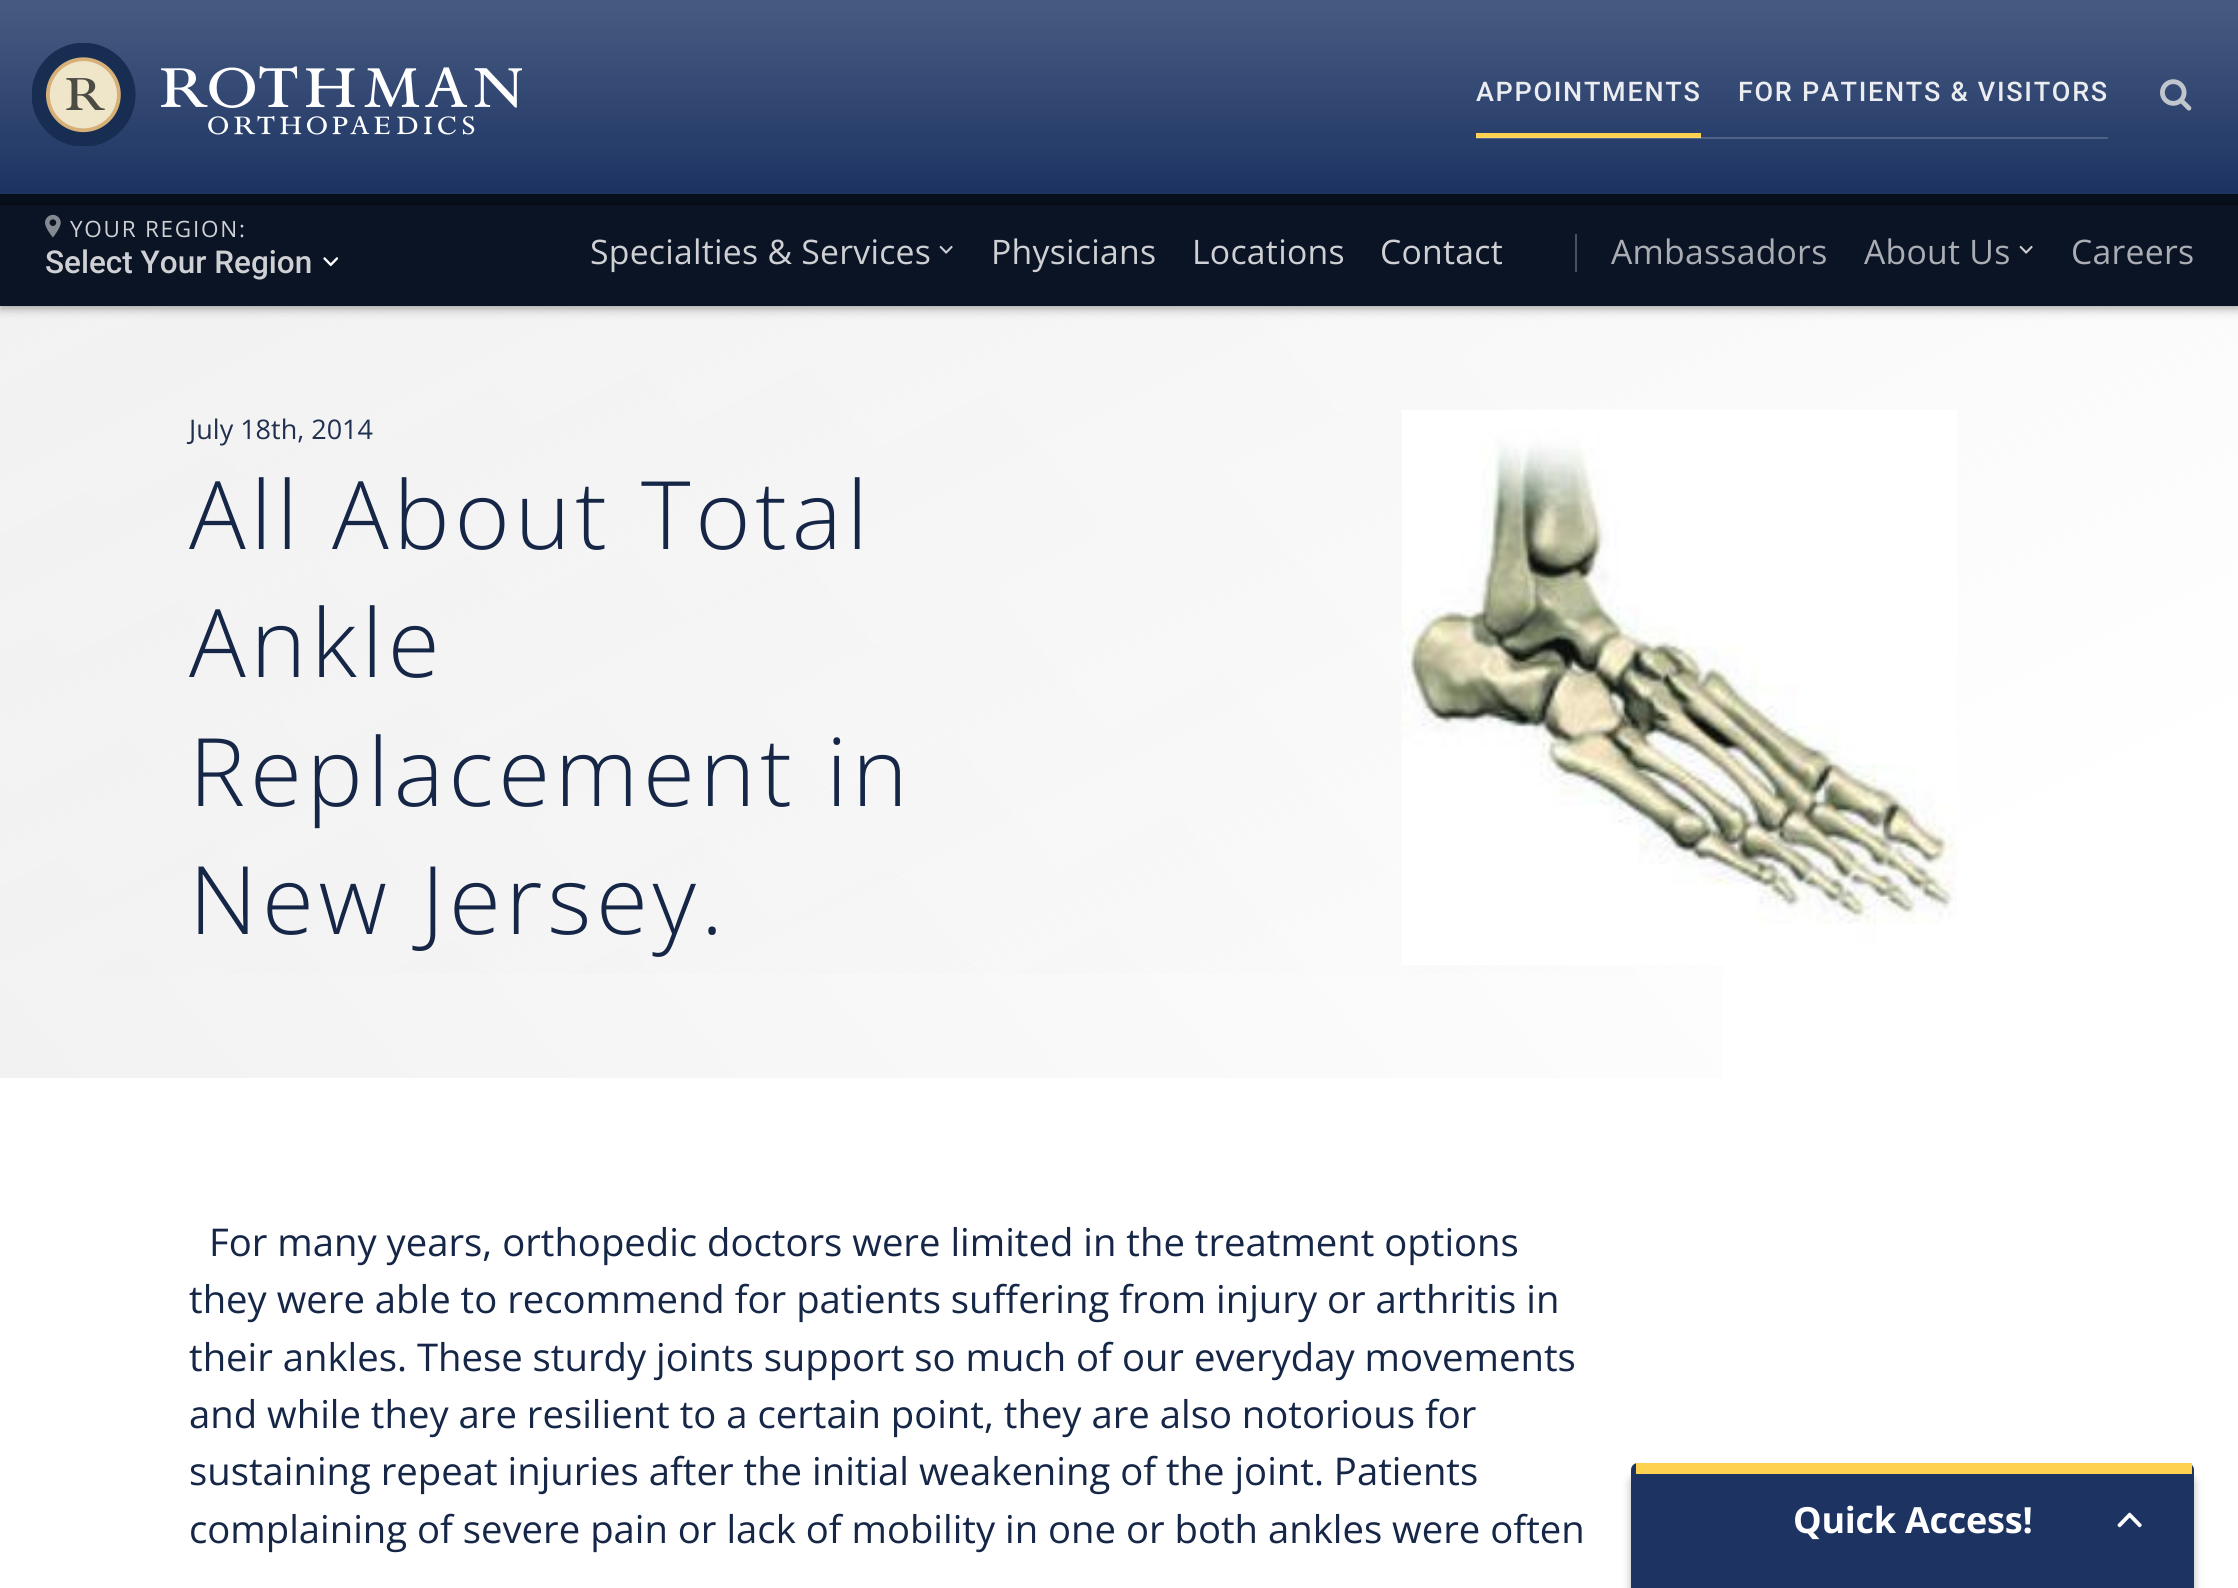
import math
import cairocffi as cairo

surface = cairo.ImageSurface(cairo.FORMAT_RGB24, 2238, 1588)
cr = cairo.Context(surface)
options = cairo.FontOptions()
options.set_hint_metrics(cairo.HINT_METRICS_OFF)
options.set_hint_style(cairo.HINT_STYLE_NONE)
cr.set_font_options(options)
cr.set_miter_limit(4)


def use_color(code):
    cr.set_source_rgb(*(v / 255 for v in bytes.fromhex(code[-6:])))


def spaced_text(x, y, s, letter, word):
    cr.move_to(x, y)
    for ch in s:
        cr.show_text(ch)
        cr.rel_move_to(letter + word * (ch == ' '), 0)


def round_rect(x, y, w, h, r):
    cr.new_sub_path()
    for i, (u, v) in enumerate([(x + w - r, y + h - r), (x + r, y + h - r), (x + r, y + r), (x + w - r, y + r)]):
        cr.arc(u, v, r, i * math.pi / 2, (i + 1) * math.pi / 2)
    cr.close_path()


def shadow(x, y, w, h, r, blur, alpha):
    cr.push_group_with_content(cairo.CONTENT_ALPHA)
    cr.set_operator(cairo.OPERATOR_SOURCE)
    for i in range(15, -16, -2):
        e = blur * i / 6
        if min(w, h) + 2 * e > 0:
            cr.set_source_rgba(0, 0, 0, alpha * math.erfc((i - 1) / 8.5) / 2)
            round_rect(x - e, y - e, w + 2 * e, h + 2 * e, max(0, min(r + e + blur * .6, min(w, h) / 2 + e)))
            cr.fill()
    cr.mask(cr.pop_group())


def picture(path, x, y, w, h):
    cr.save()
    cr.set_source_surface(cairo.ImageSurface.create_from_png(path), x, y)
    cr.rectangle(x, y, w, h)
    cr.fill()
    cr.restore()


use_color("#ffffff")
cr.paint()
gradient = cairo.LinearGradient(1978, -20, 261, 1395)
gradient.add_color_stop_rgba(0.26, 1, 1, 1, 1)
gradient.add_color_stop_rgba(1, 0.949, 0.949, 0.949, 1)
cr.set_source(gradient)
cr.rectangle(0, 306, 1723, 772)
cr.fill()
gradient = cairo.LinearGradient(739, -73, 1499, 1447)
gradient.add_color_stop_rgba(0, 0.949, 0.949, 0.949, 1)
gradient.add_color_stop_rgba(0.83, 0.949, 0.949, 0.949, 0)
cr.set_source(gradient)
cr.rectangle(0, 306, 2238, 668)
cr.fill()
use_color("#000000")
shadow(0, 5, 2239, 297, 0, 4.5, 0.5)
shadow(0, 198, 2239, 113, 0, 4.5, 0.2)
gradient = cairo.LinearGradient(1119, 0, 1119, 194)
gradient.add_color_stop_rgba(0.05, 0.275, 0.353, 0.502, 1)
gradient.add_color_stop_rgba(0.98, 0.114, 0.204, 0.388, 1)
cr.set_source(gradient)
cr.rectangle(0, 0, 2238, 194)
cr.fill()
gradient = cairo.LinearGradient(1119, 0, 1119, 194)
gradient.add_color_stop_rgba(0.05, 0.404, 0.471, 0.592, 1)
gradient.add_color_stop_rgba(0.98, 0.275, 0.349, 0.498, 1)
cr.set_source(gradient)
cr.rectangle(1476, 137, 632, 2)
cr.fill()
picture("img1.png", 32, 43, 490, 103)
cr.select_font_face("Roboto Medium")
cr.set_font_size(27)
use_color("#ebedf1")
spaced_text(1476, 101, "APPOINTMENTS", 1.7, 0)
use_color("#ffd151")
cr.rectangle(1476, 133, 225, 4)
cr.fill()
use_color("#ffd970")
cr.rectangle(1476, 137, 225, 1)
cr.fill()
use_color("#ebedf1")
spaced_text(1738, 101, "FOR PATIENTS & VISITORS", 1.7, 0)
picture("img2.png", 2160, 79, 32, 32)
use_color("#0b1425")
cr.rectangle(0, 205, 2238, 101)
cr.fill()
use_color("#060a13")
cr.rectangle(0, 203, 2238, 2)
cr.fill()
use_color("#080f1c")
cr.rectangle(0, 194, 2238, 9)
cr.fill()
picture("img3.png", 45, 214, 16, 24)
cr.select_font_face("Open Sans")
cr.set_font_size(22.5)
use_color("#ced0d3")
spaced_text(70, 237, "YOUR REGION:", 1.75, 0)
picture("img4.png", 323, 257, 16, 10)
cr.select_font_face("Roboto Medium")
cr.set_font_size(31.5)
cr.move_to(45, 273)
cr.show_text("Select Your Region")
cr.select_font_face("Open Sans")
cr.set_font_size(33.75)
spaced_text(590, 264, "Specialties & Services", 0.25, 0)
picture("img5.png", 939, 245, 14, 9)
spaced_text(991, 264, "Physicians", 0.25, 0)
spaced_text(1192, 264, "Locations", 0.25, 0)
spaced_text(1380, 264, "Contact", 0.25, 0)
use_color("#4a515e")
cr.rectangle(1575, 234, 2, 38)
cr.fill()
use_color("#aaadb3")
spaced_text(1611, 264, "Ambassadors", 0.25, 0)
spaced_text(1864, 264, "About Us", 0.25, 0)
picture("img5.png", 2019, 245, 14, 9)
spaced_text(2071, 264, "Careers", 0.25, 0)
cr.set_font_size(27)
use_color("#20304f")
cr.move_to(189, 439)
cr.show_text("July 18th, 2014")
cr.select_font_face("Open Sans Light")
cr.set_font_size(94.5)
use_color("#152647")
spaced_text(189, 549, "All About Total", 4.75, 0)
spaced_text(189, 677, "Ankle", 4.75, 0)
spaced_text(189, 806, "Replacement in", 4.75, 0)
spaced_text(189, 934, "New Jersey.", 4.75, 0)
picture("img6.png", 1402, 410, 555, 555)
cr.select_font_face("Open Sans")
cr.set_font_size(38.25)
cr.move_to(209, 1256)
cr.show_text("For many years, orthopedic doctors were limited in the treatment options")
cr.move_to(189, 1313)
cr.show_text("they were able to recommend for patients suffering from injury or arthritis in")
cr.move_to(189, 1371)
cr.show_text("their ankles. These sturdy joints support so much of our everyday movements")
cr.move_to(189, 1428)
cr.show_text("and while they are resilient to a certain point, they are also notorious for")
cr.move_to(189, 1485)
cr.show_text("sustaining repeat injuries after the initial weakening of the joint. Patients")
cr.move_to(189, 1543)
cr.show_text("complaining of severe pain or lack of mobility in one or both ankles were often")
use_color("#000000")
shadow(1631, 1476, 563, 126, 7, 4.5, 0.3)
use_color("#1d3463")
cr.new_path()
cr.move_to(1638, 1463)
cr.line_to(2187, 1463)
cr.curve_to(2191, 1463, 2194, 1466, 2194, 1470)
cr.line_to(2194, 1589)
cr.line_to(1631, 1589)
cr.line_to(1631, 1470)
cr.curve_to(1631, 1466, 1634, 1463, 1638, 1463)
cr.close_path()
cr.fill()
use_color("#ffd151")
cr.rectangle(1636, 1463, 556, 11)
cr.fill()
cr.select_font_face("Open Sans", cairo.FONT_SLANT_NORMAL, cairo.FONT_WEIGHT_BOLD)
cr.set_font_size(36)
use_color("#ffffff")
spaced_text(1793, 1533, "Quick Access!", -0.25, 0)
picture("img7.png", 2117, 1512, 25, 16)
surface.write_to_png("result.png")
